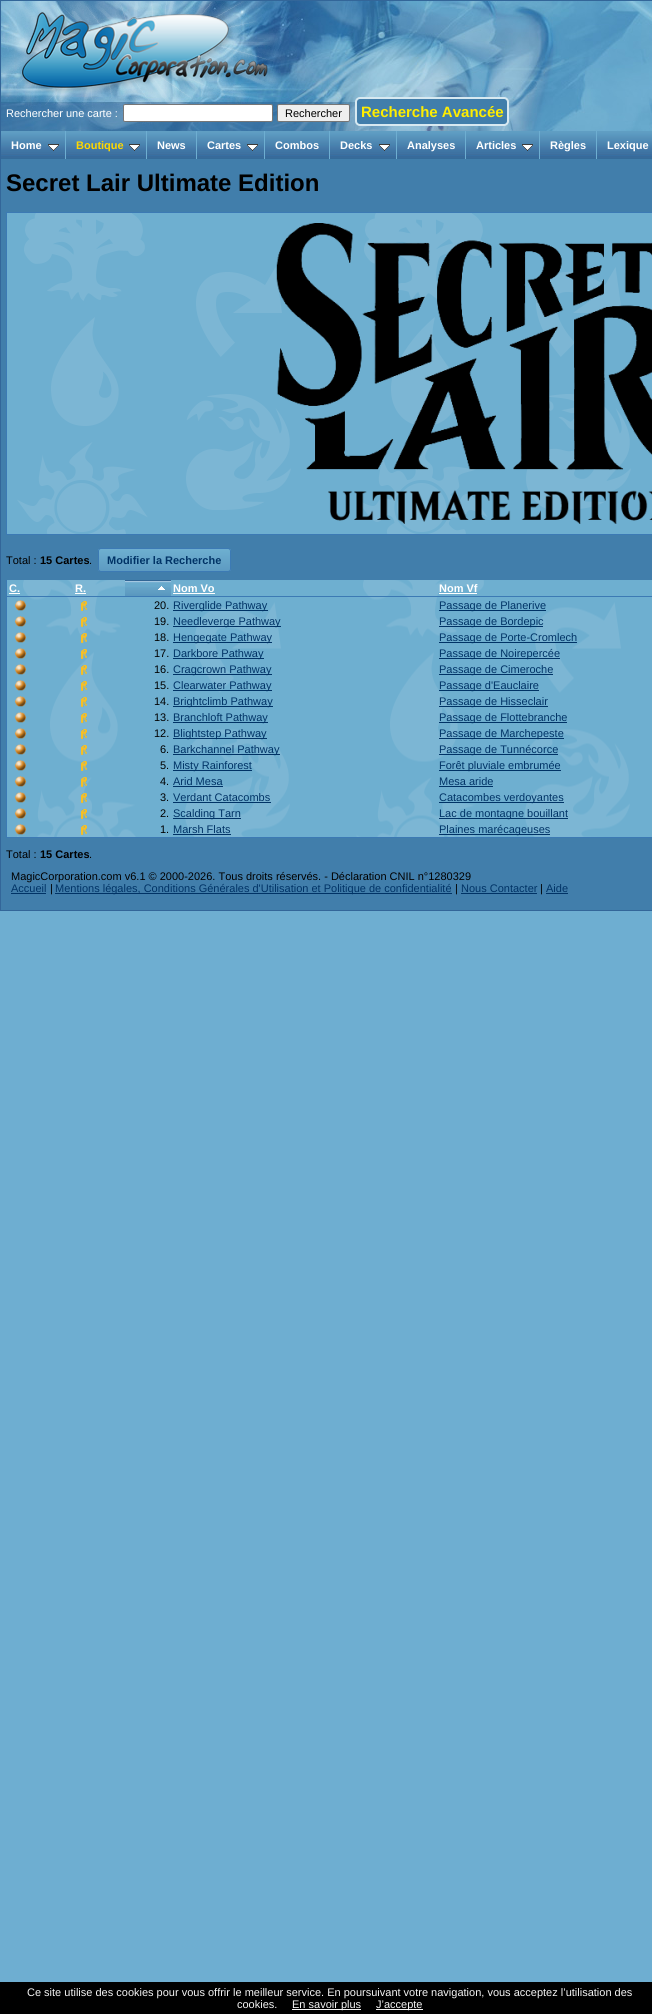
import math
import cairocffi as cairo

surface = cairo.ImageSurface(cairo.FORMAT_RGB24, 652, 2014)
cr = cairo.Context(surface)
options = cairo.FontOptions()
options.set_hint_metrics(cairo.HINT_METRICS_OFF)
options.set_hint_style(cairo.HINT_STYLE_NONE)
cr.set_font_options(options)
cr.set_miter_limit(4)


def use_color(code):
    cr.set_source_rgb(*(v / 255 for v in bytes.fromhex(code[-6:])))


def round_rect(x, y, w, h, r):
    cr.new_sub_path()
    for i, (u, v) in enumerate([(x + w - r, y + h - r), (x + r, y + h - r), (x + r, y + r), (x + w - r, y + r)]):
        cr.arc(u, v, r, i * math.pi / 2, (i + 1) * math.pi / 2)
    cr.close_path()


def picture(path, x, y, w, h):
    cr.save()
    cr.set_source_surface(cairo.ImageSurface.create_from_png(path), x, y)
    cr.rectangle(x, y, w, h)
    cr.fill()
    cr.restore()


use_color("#6eaed1")
cr.paint()
use_color("#417eab")
cr.rectangle(1, 159, 651, 751)
cr.fill()
cr.rectangle(0.5, 0.5, 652, 910)
use_color("#336699")
cr.set_line_width(1)
cr.stroke()
picture("img1.png", 1, 1, 651, 130)
picture("img2.png", 1, 1, 284, 124)
cr.select_font_face("Liberation Sans")
cr.set_font_size(11)
use_color("#ffffff")
cr.move_to(6, 117)
cr.show_text("Rechercher une carte :")
round_rect(123.5, 104.5, 149, 17, 1.5)
cr.fill_preserve()
use_color("#767676")
cr.stroke()
use_color("#efefef")
round_rect(277.5, 104.5, 72, 17, 1.5)
cr.fill_preserve()
use_color("#767676")
cr.stroke()
use_color("#000000")
cr.move_to(285, 117)
cr.show_text("Rechercher")
use_color("#417eab")
round_rect(356, 98, 152, 27, 4)
cr.fill_preserve()
use_color("#d7e9f1")
cr.set_line_width(2)
cr.stroke()
cr.select_font_face("Liberation Sans", cairo.FONT_SLANT_NORMAL, cairo.FONT_WEIGHT_BOLD)
cr.set_font_size(15)
use_color("#ffed00")
cr.move_to(361, 117)
cr.show_text("Recherche Avancée")
picture("img3.png", 1, 131, 64, 28)
cr.set_font_size(11)
use_color("#ffffff")
cr.move_to(11, 149)
cr.show_text("Home")
picture("img4.png", 48, 144, 11, 7)
picture("img5.png", 66, 131, 80, 28)
use_color("#ffd700")
cr.move_to(76, 149)
cr.show_text("Boutique")
picture("img4.png", 129, 144, 11, 7)
picture("img6.png", 147, 131, 49, 28)
use_color("#ffffff")
cr.move_to(157, 149)
cr.show_text("News")
picture("img7.png", 197, 131, 67, 28)
cr.move_to(207, 149)
cr.show_text("Cartes")
picture("img4.png", 247, 144, 11, 7)
picture("img3.png", 265, 131, 64, 28)
cr.move_to(275, 149)
cr.show_text("Combos")
picture("img8.png", 330, 131, 66, 28)
cr.move_to(340, 149)
cr.show_text("Decks")
picture("img4.png", 379, 144, 11, 7)
picture("img9.png", 397, 131, 68, 28)
cr.move_to(407, 149)
cr.show_text("Analyses")
picture("img10.png", 466, 131, 73, 28)
cr.move_to(476, 149)
cr.show_text("Articles")
picture("img4.png", 522, 144, 11, 7)
picture("img11.png", 540, 131, 56, 28)
cr.move_to(550, 149)
cr.show_text("Règles")
picture("img12.png", 597, 131, 55, 28)
cr.move_to(607, 149)
cr.show_text("Lexique")
cr.set_font_size(24)
use_color("#000000")
cr.move_to(6, 191)
cr.show_text("Secret Lair Ultimate Edition")
use_color("#6eafd0")
cr.rectangle(7, 213, 645, 321)
cr.fill()
picture("img13.png", 17, 213, 614, 321)
cr.rectangle(6.5, 212.5, 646, 322)
use_color("#3c7ab4")
cr.set_line_width(1)
cr.stroke()
picture("img14.png", 276, 223, 376, 301)
cr.select_font_face("Liberation Sans")
cr.set_font_size(11)
use_color("#000000")
cr.move_to(6, 564)
cr.show_text("Total :")
cr.select_font_face("Liberation Sans", cairo.FONT_SLANT_NORMAL, cairo.FONT_WEIGHT_BOLD)
cr.move_to(40, 564)
cr.show_text("15 Cartes")
cr.select_font_face("Liberation Sans")
cr.move_to(89, 564)
cr.show_text(".")
cr.save()
round_rect(98, 548, 133, 24, 3)
cr.clip()
gradient = cairo.LinearGradient(165, 549, 165, 571)
gradient.add_color_stop_rgba(0, 0.431, 0.686, 0.816, 1)
gradient.add_color_stop_rgba(1, 0.365, 0.608, 0.761, 1)
cr.set_source(gradient)
cr.rectangle(98, 549, 133, 22)
cr.fill()
cr.restore()
round_rect(98.5, 548.5, 132, 23, 2.5)
use_color("#3c7ab4")
cr.stroke()
cr.select_font_face("Liberation Sans", cairo.FONT_SLANT_NORMAL, cairo.FONT_WEIGHT_BOLD)
use_color("#003366")
cr.move_to(107, 564)
cr.show_text("Modifier la Recherche")
use_color("#6eafd0")
cr.rectangle(7, 580, 645, 257)
cr.fill()
picture("img15.png", 17, 580, 613, 257)
use_color("#ffffff")
cr.move_to(9, 592)
cr.show_text("C.")
cr.rectangle(9, 593, 11, 1)
cr.fill()
cr.move_to(75, 592)
cr.show_text("R.")
cr.rectangle(75, 593, 11, 1)
cr.fill()
picture("img16.png", 125, 580, 46, 16)
cr.move_to(173, 592)
cr.show_text("Nom Vo")
cr.rectangle(173, 593, 42, 1)
cr.fill()
cr.move_to(439, 592)
cr.show_text("Nom Vf")
cr.rectangle(439, 593, 38, 1)
cr.fill()
use_color("#3c7ab4")
cr.rectangle(6, 596, 646, 1)
cr.fill()
cr.rectangle(6, 837, 646, 1)
cr.fill()
cr.rectangle(6, 580, 1, 258)
cr.fill()
picture("img17.png", 15, 600, 11, 11)
picture("img18.png", 81, 601, 6, 10)
cr.select_font_face("Liberation Sans")
use_color("#000000")
cr.move_to(154, 609)
cr.show_text("20.")
use_color("#003366")
cr.rectangle(173, 610, 95, 1)
cr.fill()
cr.move_to(173, 609)
cr.show_text("Riverglide Pathway")
cr.rectangle(439, 610, 107, 1)
cr.fill()
cr.move_to(439, 609)
cr.show_text("Passage de Planerive")
picture("img17.png", 15, 616, 11, 11)
picture("img18.png", 81, 617, 6, 10)
use_color("#000000")
cr.move_to(154, 625)
cr.show_text("19.")
use_color("#003366")
cr.rectangle(173, 626, 108, 1)
cr.fill()
cr.move_to(173, 625)
cr.show_text("Needleverge Pathway")
cr.rectangle(439, 626, 104, 1)
cr.fill()
cr.move_to(439, 625)
cr.show_text("Passage de Bordepic")
picture("img17.png", 15, 632, 11, 11)
picture("img19.png", 81, 633, 6, 10)
use_color("#000000")
cr.move_to(154, 641)
cr.show_text("18.")
use_color("#003366")
cr.rectangle(173, 642, 99, 1)
cr.fill()
cr.move_to(173, 641)
cr.show_text("Hengegate Pathway")
cr.rectangle(439, 642, 138, 1)
cr.fill()
cr.move_to(439, 641)
cr.show_text("Passage de Porte-Cromlech")
picture("img17.png", 15, 648, 11, 11)
picture("img20.png", 81, 649, 6, 10)
use_color("#000000")
cr.move_to(154, 657)
cr.show_text("17.")
use_color("#003366")
cr.rectangle(173, 658, 91, 1)
cr.fill()
cr.move_to(173, 657)
cr.show_text("Darkbore Pathway")
cr.rectangle(439, 658, 121, 1)
cr.fill()
cr.move_to(439, 657)
cr.show_text("Passage de Noirepercée")
picture("img17.png", 15, 664, 11, 11)
picture("img18.png", 81, 665, 6, 10)
use_color("#000000")
cr.move_to(154, 673)
cr.show_text("16.")
use_color("#003366")
cr.rectangle(173, 674, 99, 1)
cr.fill()
cr.move_to(173, 673)
cr.show_text("Cragcrown Pathway")
cr.rectangle(439, 674, 114, 1)
cr.fill()
cr.move_to(439, 673)
cr.show_text("Passage de Cimeroche")
picture("img17.png", 15, 680, 11, 11)
picture("img18.png", 81, 681, 6, 10)
use_color("#000000")
cr.move_to(154, 689)
cr.show_text("15.")
use_color("#003366")
cr.rectangle(173, 690, 99, 1)
cr.fill()
cr.move_to(173, 689)
cr.show_text("Clearwater Pathway")
cr.rectangle(439, 690, 100, 1)
cr.fill()
cr.move_to(439, 689)
cr.show_text("Passage d'Eauclaire")
picture("img17.png", 15, 696, 11, 11)
picture("img18.png", 81, 697, 6, 10)
use_color("#000000")
cr.move_to(154, 705)
cr.show_text("14.")
use_color("#003366")
cr.rectangle(173, 706, 100, 1)
cr.fill()
cr.move_to(173, 705)
cr.show_text("Brightclimb Pathway")
cr.rectangle(439, 706, 109, 1)
cr.fill()
cr.move_to(439, 705)
cr.show_text("Passage de Hisseclair")
picture("img17.png", 15, 712, 11, 11)
picture("img18.png", 81, 713, 6, 10)
use_color("#000000")
cr.move_to(154, 721)
cr.show_text("13.")
use_color("#003366")
cr.rectangle(173, 722, 95, 1)
cr.fill()
cr.move_to(173, 721)
cr.show_text("Branchloft Pathway")
cr.rectangle(439, 722, 128, 1)
cr.fill()
cr.move_to(439, 721)
cr.show_text("Passage de Flottebranche")
picture("img17.png", 15, 728, 11, 11)
picture("img18.png", 81, 729, 6, 10)
use_color("#000000")
cr.move_to(154, 737)
cr.show_text("12.")
use_color("#003366")
cr.rectangle(173, 738, 94, 1)
cr.fill()
cr.move_to(173, 737)
cr.show_text("Blightstep Pathway")
cr.rectangle(439, 738, 125, 1)
cr.fill()
cr.move_to(439, 737)
cr.show_text("Passage de Marchepeste")
picture("img17.png", 15, 744, 11, 11)
picture("img18.png", 81, 745, 6, 10)
use_color("#000000")
cr.move_to(160, 753)
cr.show_text("6.")
use_color("#003366")
cr.rectangle(173, 754, 107, 1)
cr.fill()
cr.move_to(173, 753)
cr.show_text("Barkchannel Pathway")
cr.rectangle(439, 754, 119, 1)
cr.fill()
cr.move_to(439, 753)
cr.show_text("Passage de Tunnécorce")
picture("img17.png", 15, 760, 11, 11)
picture("img21.png", 81, 761, 6, 10)
use_color("#000000")
cr.move_to(160, 769)
cr.show_text("5.")
use_color("#003366")
cr.rectangle(173, 770, 79, 1)
cr.fill()
cr.move_to(173, 769)
cr.show_text("Misty Rainforest")
cr.rectangle(439, 770, 122, 1)
cr.fill()
cr.move_to(439, 769)
cr.show_text("Forêt pluviale embrumée")
picture("img17.png", 15, 776, 11, 11)
picture("img22.png", 81, 777, 6, 10)
use_color("#000000")
cr.move_to(160, 785)
cr.show_text("4.")
use_color("#003366")
cr.move_to(173, 785)
cr.show_text("Arid Mesa")
cr.rectangle(173, 786, 50, 1)
cr.fill()
cr.move_to(439, 785)
cr.show_text("Mesa aride")
cr.rectangle(439, 786, 54, 1)
cr.fill()
picture("img17.png", 15, 792, 11, 11)
picture("img18.png", 81, 793, 6, 10)
use_color("#000000")
cr.move_to(160, 801)
cr.show_text("3.")
use_color("#003366")
cr.move_to(173, 801)
cr.show_text("Verdant Catacombs")
cr.rectangle(173, 802, 98, 1)
cr.fill()
cr.rectangle(439, 802, 125, 1)
cr.fill()
cr.move_to(439, 801)
cr.show_text("Catacombes verdoyantes")
picture("img17.png", 15, 808, 11, 11)
picture("img23.png", 81, 809, 6, 10)
use_color("#000000")
cr.move_to(160, 817)
cr.show_text("2.")
use_color("#003366")
cr.rectangle(173, 818, 68, 1)
cr.fill()
cr.move_to(173, 817)
cr.show_text("Scalding Tarn")
cr.rectangle(439, 818, 129, 1)
cr.fill()
cr.move_to(439, 817)
cr.show_text("Lac de montagne bouillant")
picture("img17.png", 15, 824, 11, 11)
picture("img18.png", 81, 825, 6, 10)
use_color("#000000")
cr.move_to(160, 833)
cr.show_text("1.")
use_color("#003366")
cr.move_to(173, 833)
cr.show_text("Marsh Flats")
cr.rectangle(173, 834, 58, 1)
cr.fill()
cr.rectangle(439, 834, 111, 1)
cr.fill()
cr.move_to(439, 833)
cr.show_text("Plaines marécageuses")
use_color("#000000")
cr.move_to(6, 858)
cr.show_text("Total :")
cr.select_font_face("Liberation Sans", cairo.FONT_SLANT_NORMAL, cairo.FONT_WEIGHT_BOLD)
cr.move_to(40, 858)
cr.show_text("15 Cartes")
cr.select_font_face("Liberation Sans")
cr.move_to(89, 858)
cr.show_text(".")
cr.move_to(11, 880)
cr.show_text("MagicCorporation.com v6.1 © 2000-2026. Tous droits réservés. - Déclaration CNIL n°1280329")
use_color("#003366")
cr.move_to(11, 892)
cr.show_text("Accueil")
cr.rectangle(11, 893, 35, 1)
cr.fill()
use_color("#000000")
cr.move_to(50, 892)
cr.show_text("|")
use_color("#003366")
cr.rectangle(55, 893, 397, 1)
cr.fill()
cr.move_to(55, 892)
cr.show_text("Mentions légales, Conditions Générales d'Utilisation et Politique de confidentialité")
use_color("#000000")
cr.move_to(455, 892)
cr.show_text("|")
use_color("#003366")
cr.move_to(461, 892)
cr.show_text("Nous Contacter")
cr.rectangle(461, 893, 76, 1)
cr.fill()
use_color("#000000")
cr.move_to(540, 892)
cr.show_text("|")
use_color("#003366")
cr.move_to(546, 892)
cr.show_text("Aide")
cr.rectangle(546, 893, 22, 1)
cr.fill()
use_color("#000000")
cr.rectangle(0, 1982, 652, 32)
cr.fill()
use_color("#f5f5f5")
cr.move_to(27, 1996)
cr.show_text("Ce site utilise des cookies pour vous offrir le meilleur service. En poursuivant votre navigation, vous acceptez l’utilisation des")
cr.move_to(237, 2008)
cr.show_text("cookies.")
cr.rectangle(292, 2009, 69, 1)
cr.fill()
cr.move_to(292, 2008)
cr.show_text("En savoir plus")
cr.rectangle(376, 2009, 47, 1)
cr.fill()
cr.move_to(376, 2008)
cr.show_text("J’accepte")
surface.write_to_png("result.png")
